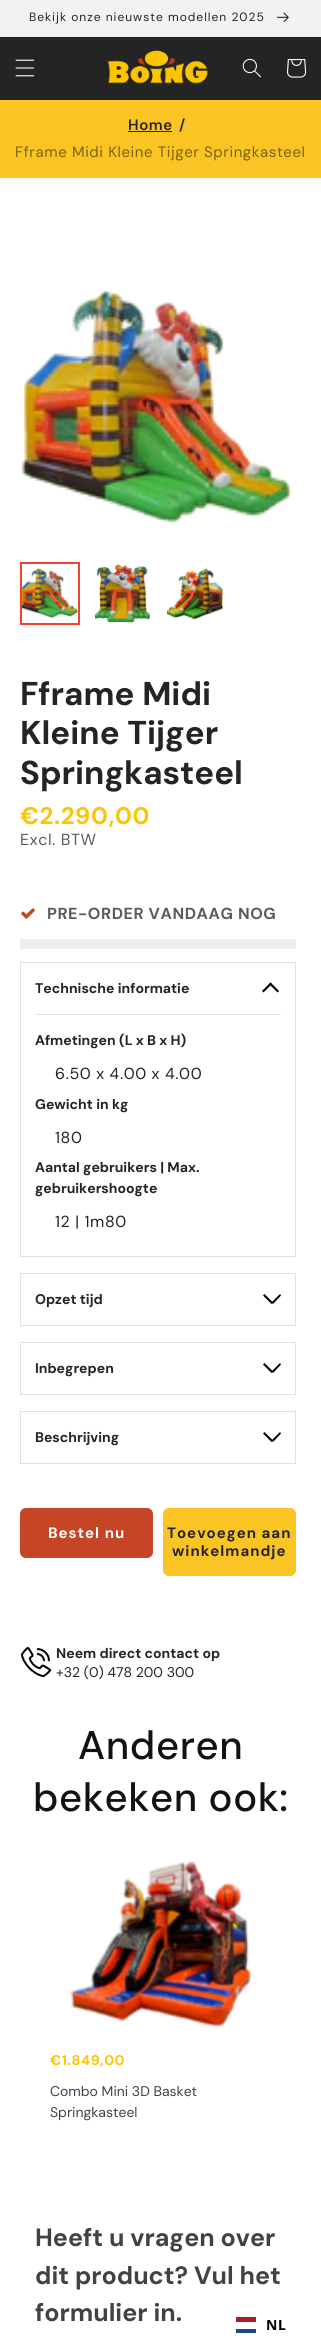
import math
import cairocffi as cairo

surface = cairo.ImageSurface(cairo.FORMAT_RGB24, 321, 2345)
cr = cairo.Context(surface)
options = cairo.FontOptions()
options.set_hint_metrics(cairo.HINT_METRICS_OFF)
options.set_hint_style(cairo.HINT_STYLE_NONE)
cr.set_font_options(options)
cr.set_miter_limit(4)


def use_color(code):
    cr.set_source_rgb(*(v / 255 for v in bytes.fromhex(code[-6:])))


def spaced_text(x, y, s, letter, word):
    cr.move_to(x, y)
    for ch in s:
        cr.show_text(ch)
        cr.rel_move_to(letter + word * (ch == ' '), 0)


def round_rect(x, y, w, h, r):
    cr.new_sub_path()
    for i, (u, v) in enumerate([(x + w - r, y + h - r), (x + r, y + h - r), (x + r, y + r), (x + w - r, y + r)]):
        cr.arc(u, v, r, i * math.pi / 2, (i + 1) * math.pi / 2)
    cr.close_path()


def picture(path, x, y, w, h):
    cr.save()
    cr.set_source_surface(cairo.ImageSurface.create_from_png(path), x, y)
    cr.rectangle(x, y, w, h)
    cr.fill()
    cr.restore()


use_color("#ffffff")
cr.paint()
use_color("#ededed")
cr.rectangle(0, 36, 321, 1)
cr.fill()
use_color("#f2f2f2")
cr.rectangle(0, 0, 321, 36)
cr.fill()
cr.select_font_face("DM Sans")
cr.set_font_size(12)
use_color("#242424")
spaced_text(29, 21, "Bekijk onze nieuwste modellen 2025", 1, 0)
picture("img1.png", 277, 12, 12, 10)
cr.rectangle(0, 37, 321, 63)
cr.fill()
picture("img2.png", 15, 59, 20, 18)
picture("img3.png", 108, 50, 100, 34)
picture("img4.png", 242, 58, 19, 20)
picture("img5.png", 287, 59, 20, 19)
use_color("#fac424")
cr.rectangle(0, 100, 321, 78)
cr.fill()
cr.select_font_face("DM Sans SemiBold")
cr.set_font_size(15)
use_color("#242424")
spaced_text(128, 130, "Home", 0.6, 0)
cr.rectangle(128, 131, 44, 1)
cr.fill()
spaced_text(179, 130, "/", 0.6, 0)
cr.select_font_face("DM Sans")
use_color("#7d6212")
spaced_text(15, 157, "Fframe Midi Kleine Tijger Springkasteel", 0.6, 0)
picture("img6.png", 21, 290, 271, 233)
cr.rectangle(21, 563, 58, 61)
use_color("#f24330")
cr.stroke()
picture("img7.png", 22, 568, 56, 51)
picture("img8.png", 95, 564, 55, 59)
picture("img9.png", 167, 568, 56, 52)
cr.select_font_face("DM Sans", cairo.FONT_SLANT_NORMAL, cairo.FONT_WEIGHT_BOLD)
cr.set_font_size(33)
use_color("#242424")
cr.move_to(20, 705)
cr.show_text("Fframe Midi")
cr.move_to(20, 744)
cr.show_text("Kleine Tijger")
cr.move_to(20, 784)
cr.show_text("Springkasteel")
cr.set_font_size(24)
use_color("#fbc500")
spaced_text(20, 824, "€2.290,00", 0.6, 0)
cr.select_font_face("DM Sans")
cr.set_font_size(16)
use_color("#5b5b5b")
spaced_text(20, 845, "Excl. BTW", 0.6, 0)
picture("img10.png", 21, 908, 14, 11)
cr.select_font_face("DM Sans", cairo.FONT_SLANT_NORMAL, cairo.FONT_WEIGHT_BOLD)
spaced_text(47, 919, "PRE-ORDER VANDAAG NOG", 0.6, 0)
use_color("#eeeeee")
cr.rectangle(20, 939, 276, 10)
cr.fill()
cr.rectangle(20.5, 962.5, 275, 294)
use_color("#e0e0e0")
cr.set_line_width(1)
cr.stroke()
cr.rectangle(35, 1014, 246, 1)
cr.fill()
cr.set_font_size(14)
use_color("#242424")
cr.move_to(35, 993)
cr.show_text("Technische informatie")
use_color("#000000")
cr.new_path()
cr.move_to(272, 984)
cr.line_to(263.5, 992.5)
cr.line_to(262, 991)
cr.line_to(270.5, 982.5)
cr.close_path()
cr.fill()
cr.new_path()
cr.move_to(270.5, 982.5)
cr.line_to(279, 991)
cr.line_to(277.5, 992.5)
cr.line_to(269, 984)
cr.close_path()
cr.fill()
use_color("#242424")
cr.move_to(35, 1045)
cr.show_text("Afmetingen (L x B x H)")
cr.select_font_face("DM Sans")
cr.set_font_size(16)
spaced_text(55, 1079, "6.50 x 4.00 x 4.00", 0.6, 0)
cr.select_font_face("DM Sans", cairo.FONT_SLANT_NORMAL, cairo.FONT_WEIGHT_BOLD)
cr.set_font_size(14)
cr.move_to(35, 1109)
cr.show_text("Gewicht in kg")
cr.select_font_face("DM Sans")
cr.set_font_size(16)
spaced_text(55, 1143, "180", 0.6, 0)
cr.select_font_face("DM Sans", cairo.FONT_SLANT_NORMAL, cairo.FONT_WEIGHT_BOLD)
cr.set_font_size(14)
cr.move_to(35, 1172)
cr.show_text("Aantal gebruikers | Max.")
cr.move_to(35, 1193)
cr.show_text("gebruikershoogte")
cr.select_font_face("DM Sans")
cr.set_font_size(16)
spaced_text(55, 1227, "12 | 1m80", 0.6, 0)
cr.rectangle(20.5, 1273.5, 275, 52)
use_color("#e0e0e0")
cr.stroke()
cr.select_font_face("DM Sans", cairo.FONT_SLANT_NORMAL, cairo.FONT_WEIGHT_BOLD)
cr.set_font_size(14)
use_color("#242424")
cr.move_to(35, 1304)
cr.show_text("Opzet tijd")
use_color("#000000")
cr.new_path()
cr.move_to(264.5, 1294)
cr.line_to(273, 1302.5)
cr.line_to(271.5, 1304)
cr.line_to(263, 1295.5)
cr.close_path()
cr.fill()
cr.new_path()
cr.move_to(281, 1295.5)
cr.line_to(273, 1304)
cr.line_to(271.5, 1302.5)
cr.line_to(280, 1294)
cr.close_path()
cr.fill()
cr.rectangle(20.5, 1342.5, 275, 52)
use_color("#e0e0e0")
cr.stroke()
use_color("#242424")
cr.move_to(35, 1373)
cr.show_text("Inbegrepen")
use_color("#000000")
cr.new_path()
cr.move_to(264.5, 1363)
cr.line_to(273, 1371.5)
cr.line_to(271.5, 1373)
cr.line_to(263, 1364.5)
cr.close_path()
cr.fill()
cr.new_path()
cr.move_to(281, 1364.5)
cr.line_to(273, 1373)
cr.line_to(271.5, 1371.5)
cr.line_to(280, 1363)
cr.close_path()
cr.fill()
cr.rectangle(20.5, 1411.5, 275, 52)
use_color("#e0e0e0")
cr.stroke()
use_color("#242424")
cr.move_to(35, 1442)
cr.show_text("Beschrijving")
use_color("#000000")
cr.new_path()
cr.move_to(264.5, 1432)
cr.line_to(273, 1440.5)
cr.line_to(271.5, 1442)
cr.line_to(263, 1433.5)
cr.close_path()
cr.fill()
cr.new_path()
cr.move_to(281, 1433.5)
cr.line_to(273, 1442)
cr.line_to(271.5, 1440.5)
cr.line_to(280, 1432)
cr.close_path()
cr.fill()
use_color("#c64527")
round_rect(20, 1508, 133, 50, 6)
cr.fill()
cr.set_font_size(15)
use_color("#ffffff")
spaced_text(48, 1538, "Bestel nu", 1, 0)
use_color("#fbc425")
round_rect(163, 1508, 133, 68, 6)
cr.fill()
use_color("#242424")
spaced_text(167, 1538, "Toevoegen aan", 1, 0)
spaced_text(172, 1556, "winkelmandje", 1, 0)
picture("img11.png", 20, 1646, 32, 32)
cr.set_font_size(14)
cr.move_to(56, 1658)
cr.show_text("Neem direct contact op")
cr.select_font_face("DM Sans")
cr.move_to(56, 1677)
cr.show_text("+32 (0) 478 200 300")
cr.select_font_face("DM Sans Medium")
cr.set_font_size(40)
use_color("#121212")
spaced_text(78, 1759, "Anderen", 0.6, 0)
spaced_text(33, 1811, "bekeken ook:", 0.6, 0)
picture("img12.png", 70, 1861, 181, 166)
cr.select_font_face("DM Sans", cairo.FONT_SLANT_NORMAL, cairo.FONT_WEIGHT_BOLD)
cr.set_font_size(14)
use_color("#fbc500")
spaced_text(50, 2065, "€1.849,00", 0.6, 0)
cr.select_font_face("DM Sans")
use_color("#424242")
cr.move_to(50, 2096)
cr.show_text("Combo Mini 3D Basket")
cr.move_to(50, 2117)
cr.show_text("Springkasteel")
cr.select_font_face("DM Sans", cairo.FONT_SLANT_NORMAL, cairo.FONT_WEIGHT_BOLD)
cr.set_font_size(25)
cr.move_to(35, 2246)
cr.show_text("Heeft u vragen over")
cr.move_to(35, 2284)
cr.show_text("dit product? Vul het")
cr.move_to(35, 2321)
cr.show_text("formulier in.")
use_color("#ae1c28")
cr.rectangle(236, 2317, 20, 5)
cr.fill()
use_color("#21468b")
cr.rectangle(236, 2329, 20, 4)
cr.fill()
cr.select_font_face("Noto Sans", cairo.FONT_SLANT_NORMAL, cairo.FONT_WEIGHT_BOLD)
cr.set_font_size(14)
use_color("#000000")
spaced_text(266, 2330, "NL", 0.6, 0)
surface.write_to_png("result.png")
